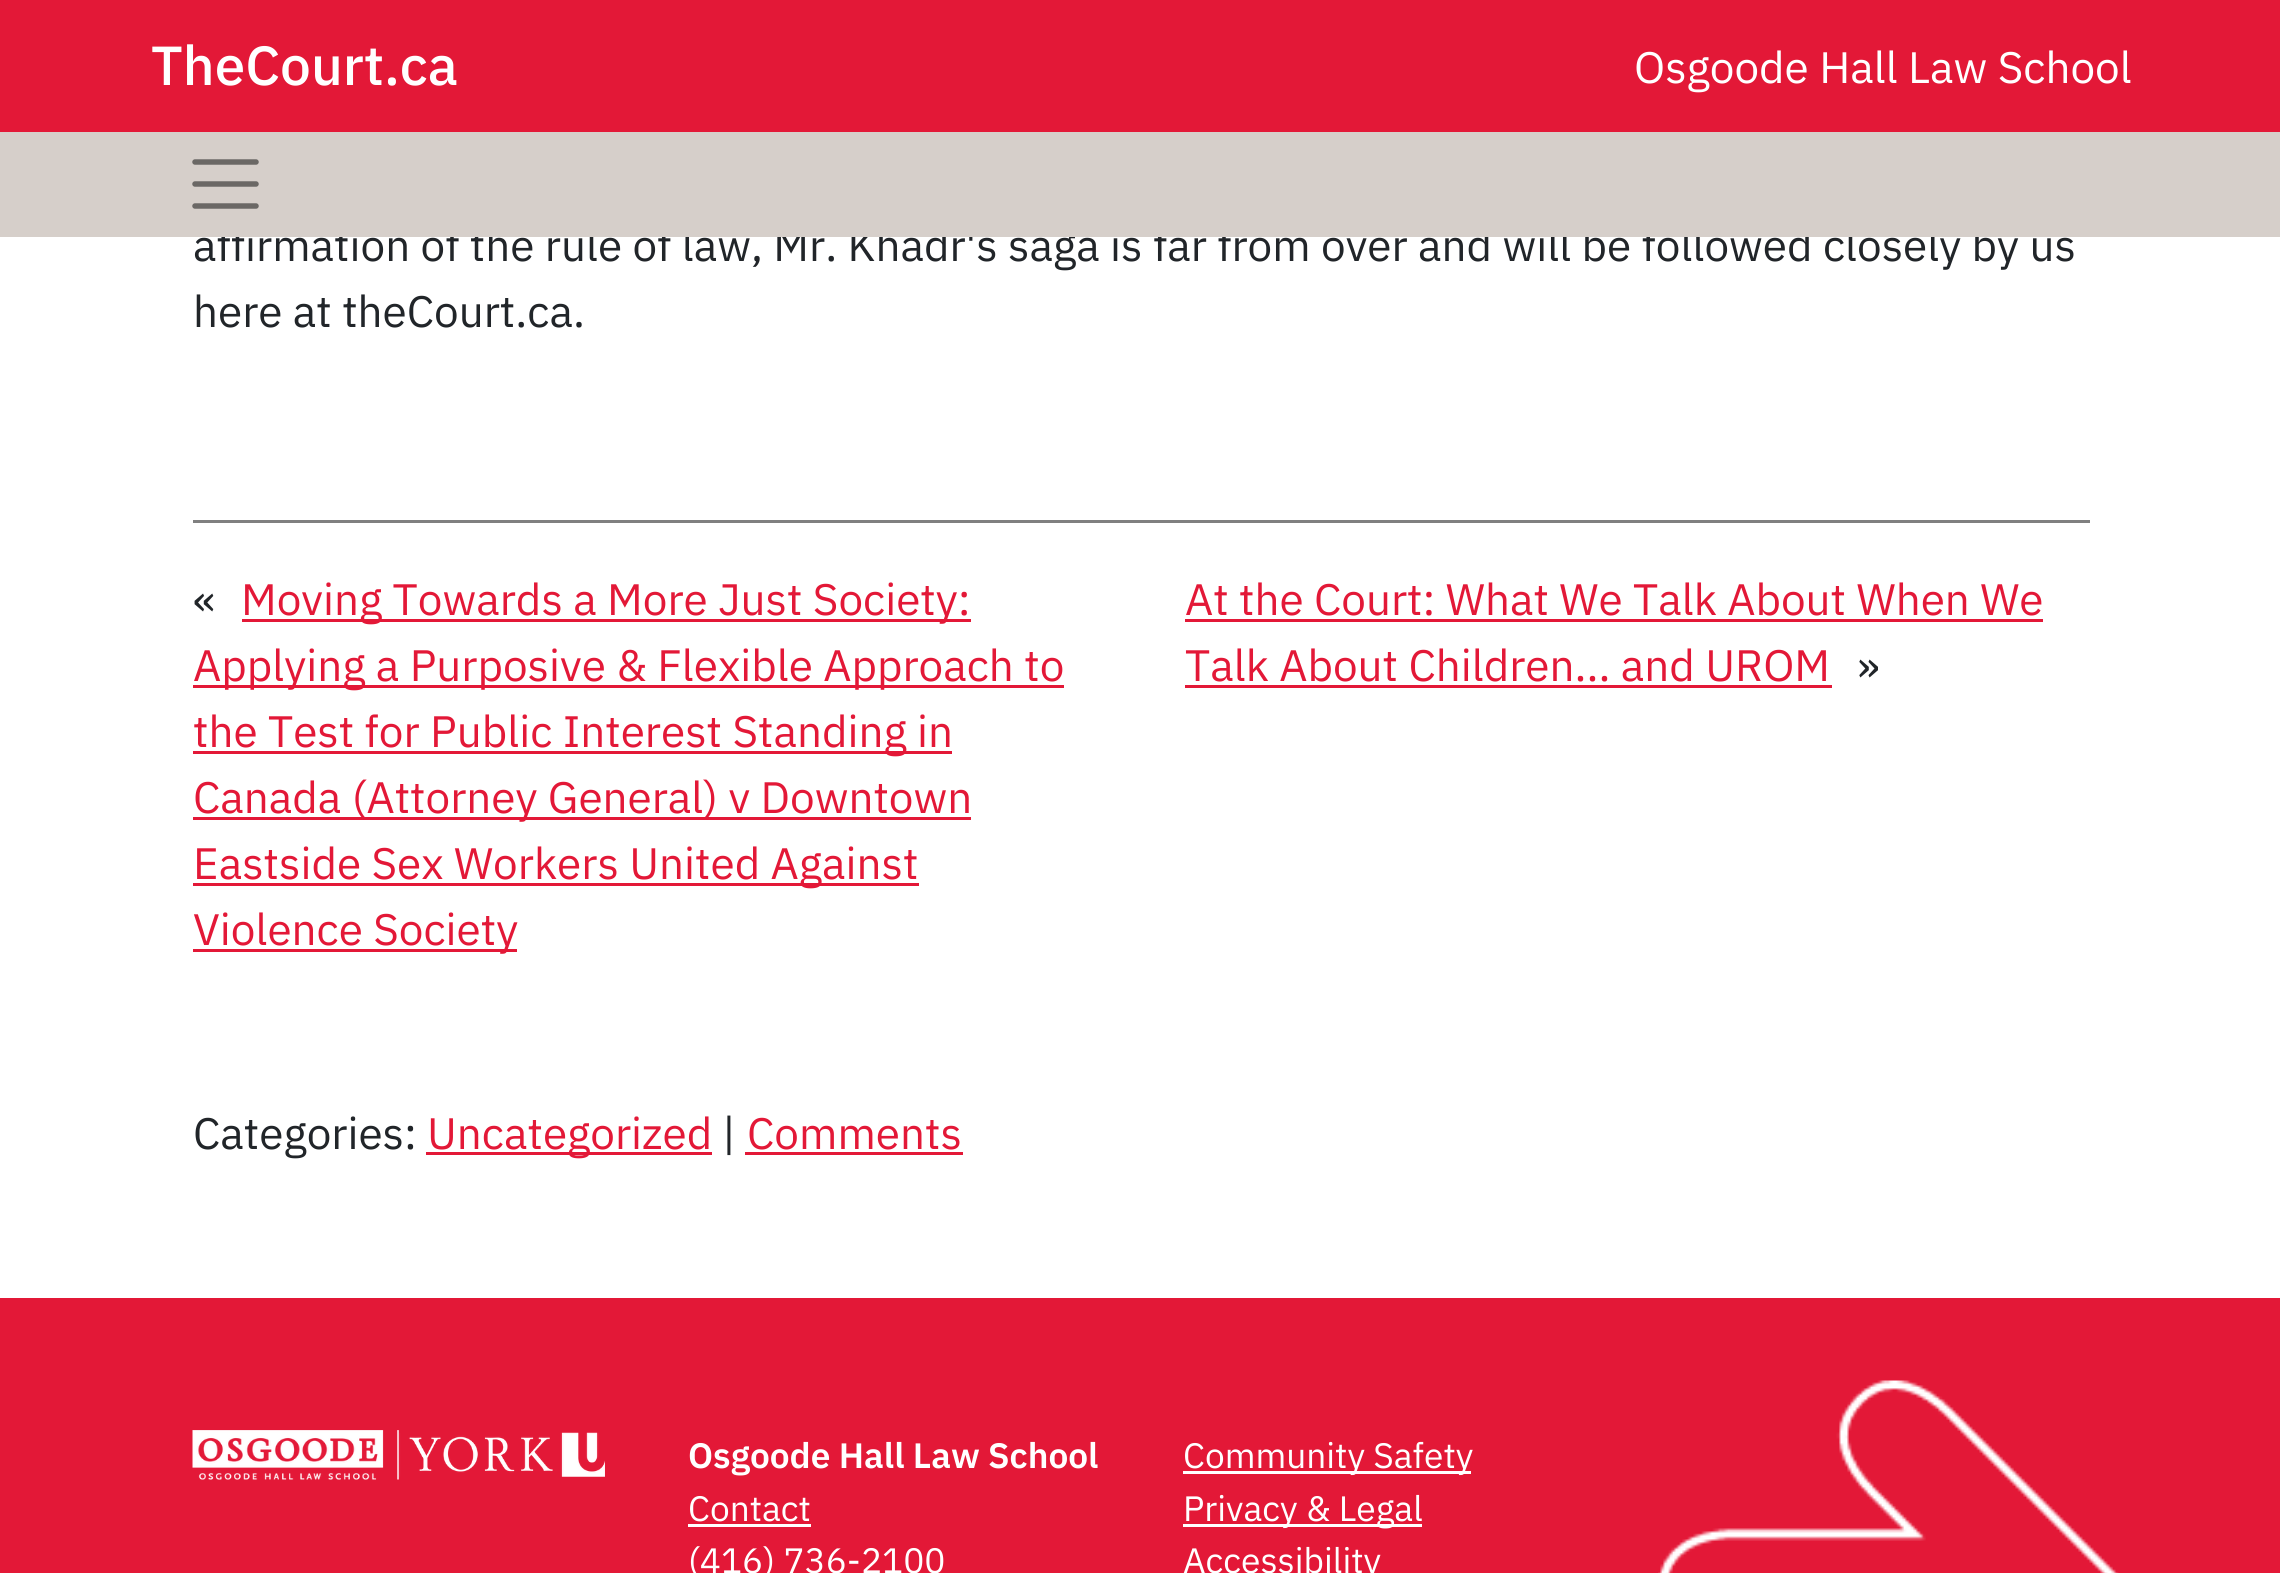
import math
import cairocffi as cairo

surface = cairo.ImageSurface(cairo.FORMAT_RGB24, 2280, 1573)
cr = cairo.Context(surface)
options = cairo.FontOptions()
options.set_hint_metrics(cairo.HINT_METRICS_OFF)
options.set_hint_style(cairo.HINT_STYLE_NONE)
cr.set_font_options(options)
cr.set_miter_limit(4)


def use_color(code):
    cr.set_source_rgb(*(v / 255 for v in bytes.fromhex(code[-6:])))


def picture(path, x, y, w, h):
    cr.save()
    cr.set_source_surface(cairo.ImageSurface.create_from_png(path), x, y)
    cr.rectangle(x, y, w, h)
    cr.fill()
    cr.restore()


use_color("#ffffff")
cr.paint()
use_color("#e31837")
cr.rectangle(0, 0, 2280, 132)
cr.fill()
cr.select_font_face("IBM Plex Sans Medium")
cr.set_font_size(55)
use_color("#ffffff")
cr.move_to(151, 85)
cr.show_text("TheCourt.ca")
cr.select_font_face("IBM Plex Sans")
cr.set_font_size(44)
cr.move_to(1634, 83)
cr.show_text("Osgoode Hall Law School")
use_color("#212529")
cr.move_to(193, 261)
cr.show_text("affirmation of the rule of law, Mr. Khadr's saga is far from over and will be followed closely by us")
use_color("#d6cfca")
cr.rectangle(0, 132, 2280, 105)
cr.fill()
cr.new_path()
cr.move_to(195, 162)
cr.line_to(256, 162)
cr.move_to(195, 184)
cr.line_to(256, 184)
cr.move_to(195, 206)
cr.line_to(256, 206)
use_color("#6b6865")
cr.set_line_width(5.5)
cr.set_line_cap(cairo.LINE_CAP_ROUND)
cr.stroke()
use_color("#212529")
cr.move_to(193, 327)
cr.show_text("here at theCourt.ca.")
use_color("#808080")
cr.rectangle(193, 520, 1897, 3)
cr.fill()
use_color("#212529")
cr.move_to(193, 615)
cr.show_text("«")
use_color("#e31837")
cr.rectangle(242, 619, 729, 3)
cr.fill()
cr.move_to(241, 615)
cr.show_text("Moving Towards a More Just Society:")
cr.rectangle(193, 685, 871, 3)
cr.fill()
cr.move_to(193, 681)
cr.show_text("Applying a Purposive & Flexible Approach to")
cr.rectangle(193, 751, 759, 3)
cr.fill()
cr.move_to(193, 747)
cr.show_text("the Test for Public Interest Standing in")
cr.rectangle(193, 817, 778, 3)
cr.fill()
cr.move_to(193, 813)
cr.show_text("Canada (Attorney General) v Downtown")
cr.rectangle(193, 883, 726, 3)
cr.fill()
cr.move_to(193, 879)
cr.show_text("Eastside Sex Workers United Against")
cr.rectangle(193, 949, 324, 3)
cr.fill()
cr.move_to(193, 945)
cr.show_text("Violence Society")
cr.move_to(1185, 615)
cr.show_text("At the Court: What We Talk About When We")
cr.rectangle(1185, 619, 858, 3)
cr.fill()
cr.move_to(1185, 681)
cr.show_text("Talk About Children... and UROM")
cr.rectangle(1185, 685, 647, 3)
cr.fill()
use_color("#212529")
cr.move_to(1857, 681)
cr.show_text("»")
cr.move_to(193, 1149)
cr.show_text("Categories:")
use_color("#e31837")
cr.rectangle(426, 1152, 286, 3)
cr.fill()
cr.move_to(427, 1149)
cr.show_text("Uncategorized")
use_color("#212529")
cr.move_to(722, 1149)
cr.show_text("|")
use_color("#e31837")
cr.move_to(747, 1149)
cr.show_text("Comments")
cr.rectangle(745, 1152, 218, 3)
cr.fill()
cr.rectangle(0, 1298, 2280, 275)
cr.fill()
picture("img1.png", 1658, 1380, 461, 193)
picture("img2.png", 192, 1430, 207, 50)
picture("img3.png", 399, 1432, 206, 45)
cr.select_font_face("IBM Plex Sans SemiBold")
cr.set_font_size(35.25)
use_color("#ffffff")
cr.move_to(688, 1468)
cr.show_text("Osgoode Hall Law School")
cr.select_font_face("IBM Plex Sans")
cr.move_to(688, 1521)
cr.show_text("Contact")
cr.rectangle(688, 1524, 123, 3)
cr.fill()
cr.move_to(688, 1573)
cr.show_text("(416) 736-2100")
cr.rectangle(1183, 1471, 288, 3)
cr.fill()
cr.move_to(1183, 1468)
cr.show_text("Community Safety")
cr.rectangle(1183, 1524, 239, 3)
cr.fill()
cr.move_to(1183, 1521)
cr.show_text("Privacy & Legal")
cr.move_to(1183, 1573)
cr.show_text("Accessibility")
surface.write_to_png("result.png")
